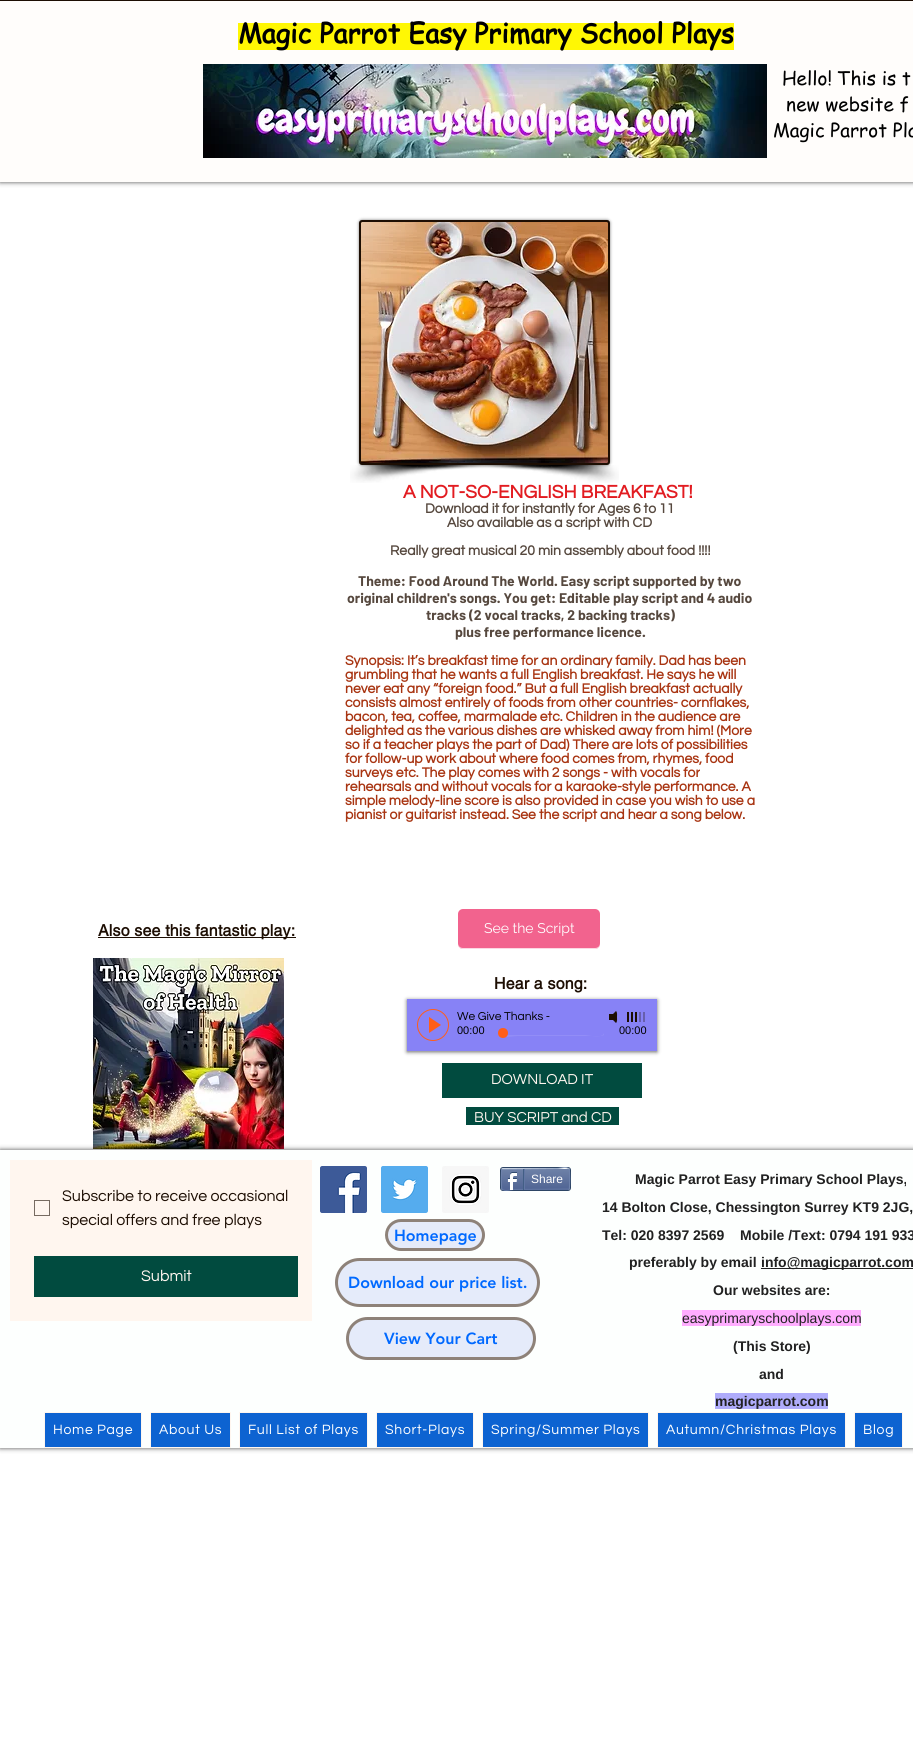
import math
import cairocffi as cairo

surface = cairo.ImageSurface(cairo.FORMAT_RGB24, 913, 1747)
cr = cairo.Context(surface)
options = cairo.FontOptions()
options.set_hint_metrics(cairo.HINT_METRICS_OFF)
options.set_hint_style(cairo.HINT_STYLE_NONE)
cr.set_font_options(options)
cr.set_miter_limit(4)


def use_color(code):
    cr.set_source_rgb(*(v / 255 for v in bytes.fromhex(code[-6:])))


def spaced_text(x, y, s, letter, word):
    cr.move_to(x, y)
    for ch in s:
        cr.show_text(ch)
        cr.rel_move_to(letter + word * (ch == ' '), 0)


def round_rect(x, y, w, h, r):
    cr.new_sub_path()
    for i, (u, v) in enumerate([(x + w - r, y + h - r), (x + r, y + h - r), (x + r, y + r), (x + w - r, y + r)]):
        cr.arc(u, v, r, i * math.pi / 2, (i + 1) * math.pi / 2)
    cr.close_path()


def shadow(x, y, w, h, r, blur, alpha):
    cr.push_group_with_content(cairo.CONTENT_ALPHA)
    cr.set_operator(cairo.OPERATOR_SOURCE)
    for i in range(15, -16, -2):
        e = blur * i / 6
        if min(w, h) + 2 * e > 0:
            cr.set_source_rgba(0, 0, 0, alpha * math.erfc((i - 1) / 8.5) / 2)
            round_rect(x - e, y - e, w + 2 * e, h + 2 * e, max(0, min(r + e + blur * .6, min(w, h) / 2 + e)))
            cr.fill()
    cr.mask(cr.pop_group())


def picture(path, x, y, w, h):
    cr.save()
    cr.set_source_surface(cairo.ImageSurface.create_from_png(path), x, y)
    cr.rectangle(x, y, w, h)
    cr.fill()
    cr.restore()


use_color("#ffffff")
cr.paint()
use_color("#000000")
shadow(0, 0, 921, 182, 0, 2.5, 0.7)
use_color("#1d0e03")
cr.rectangle(0, 0, 913, 1)
cr.fill()
use_color("#fffdfb")
cr.rectangle(0, 1, 913, 181)
cr.fill()
use_color("#fff704")
cr.rectangle(238, 23, 496, 27)
cr.fill()
cr.select_font_face("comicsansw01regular", cairo.FONT_SLANT_NORMAL, cairo.FONT_WEIGHT_BOLD)
cr.set_font_size(27)
use_color("#000000")
cr.move_to(238, 43)
cr.show_text("Magic Parrot Easy Primary School Plays")
picture("img1.png", 203, 64, 564, 94)
cr.select_font_face("comicsansw01regular")
cr.set_font_size(19)
cr.move_to(782, 85)
cr.show_text("Hello! This is t")
cr.move_to(786, 111)
cr.show_text("new website f")
cr.move_to(773, 137)
cr.show_text("Magic Parrot Pla")
use_color("#000000")
shadow(359, 220, 251, 245, 3, 1.5, 0.5)
use_color("#1d0e03")
round_rect(360, 221, 249, 243, 2)
cr.fill_preserve()
cr.stroke()
picture("img2.png", 361, 222, 247, 241)
picture("img3.png", 350, 465, 154, 18)
picture("img4.png", 470, 465, 149, 18)
cr.select_font_face("Questrial", cairo.FONT_SLANT_NORMAL, cairo.FONT_WEIGHT_BOLD)
use_color("#e21c21")
cr.move_to(403, 498)
cr.show_text("A NOT-SO-ENGLISH BREAKFAST!")
cr.set_font_size(14)
use_color("#56483e")
cr.move_to(425, 513)
cr.show_text("Download it for instantly for Ages 6 to 11")
cr.move_to(447, 527)
cr.show_text("Also available as a script with CD")
cr.move_to(390, 555)
cr.show_text("Really great musical 20 min assembly about food !!!!")
cr.select_font_face("Barlow", cairo.FONT_SLANT_NORMAL, cairo.FONT_WEIGHT_BOLD)
cr.move_to(358, 586)
cr.show_text("Theme: Food Around The World. Easy script supported by two")
cr.move_to(347, 603)
cr.show_text("original children's songs. You get: Editable play script and 4 audio")
cr.move_to(426, 620)
cr.show_text("tracks (2 vocal tracks, 2 backing tracks)")
cr.move_to(455, 637)
cr.show_text("plus free performance licence.")
cr.select_font_face("Questrial", cairo.FONT_SLANT_NORMAL, cairo.FONT_WEIGHT_BOLD)
use_color("#a83411")
cr.move_to(345, 665)
cr.show_text("Synopsis: It’s breakfast time for an ordinary family. Dad has been")
cr.move_to(345, 679)
cr.show_text("grumbling that he wants a full English breakfast. He says he will")
cr.move_to(345, 693)
cr.show_text("never eat any “foreign food.” But a full English breakfast actually")
cr.move_to(345, 707)
cr.show_text("consists almost entirely of foods from other countries- cornflakes,")
cr.move_to(345, 721)
cr.show_text("bacon, tea, coffee, marmalade etc. Children in the audience are")
cr.move_to(345, 735)
cr.show_text("delighted as the various dishes are whisked away from him! (More")
cr.move_to(345, 749)
cr.show_text("so if a teacher plays the part of Dad) There are lots of possibilities")
cr.move_to(345, 763)
cr.show_text("for follow-up work about where food comes from, rhymes, food")
cr.move_to(345, 777)
cr.show_text("surveys etc. The play comes with 2 songs - with vocals for")
cr.move_to(345, 791)
cr.show_text("rehearsals and without vocals for a karaoke-style performance. A")
cr.move_to(345, 805)
cr.show_text("simple melody-line score is also provided in case you wish to use a")
cr.move_to(345, 819)
cr.show_text("pianist or guitarist instead. See the script and hear a song below.")
use_color("#1d0e03")
cr.rectangle(98, 937, 198, 1)
cr.fill()
cr.select_font_face("helvetica", cairo.FONT_SLANT_NORMAL, cairo.FONT_WEIGHT_BOLD)
cr.set_font_size(16)
spaced_text(98, 936, "Also see this fantastic play:", 0.15, 0)
use_color("#f2638e")
round_rect(458, 909, 142, 40, 5)
cr.fill()
cr.set_source_rgba(1, 1, 1, 0.75)
cr.new_path()
cr.move_to(458, 943)
cr.line_to(458, 944)
cr.curve_to(458, 947, 460, 949, 463, 949)
cr.line_to(595, 949)
cr.curve_to(598, 949, 600, 947, 600, 944)
cr.line_to(600, 943)
cr.curve_to(600, 946, 598, 948, 595, 948)
cr.line_to(463, 948)
cr.curve_to(460, 948, 458, 946, 458, 943)
cr.close_path()
cr.fill()
cr.select_font_face("Raleway")
cr.set_font_size(14)
use_color("#ffffff")
cr.move_to(484, 933)
cr.show_text("See the Script")
picture("img5.png", 93, 958, 191, 191)
cr.select_font_face("helvetica", cairo.FONT_SLANT_NORMAL, cairo.FONT_WEIGHT_BOLD)
cr.set_font_size(16)
use_color("#1d0e03")
spaced_text(494, 989, "Hear a song:", 0.15, 0)
use_color("#000000")
shadow(407, 1000, 250, 52, 0, 2, 0.6)
use_color("#8782f6")
cr.rectangle(407, 999, 250, 52)
cr.fill()
cr.arc(433, 1025, 15.5, 0, 2 * math.pi)
use_color("#ff5e1a")
cr.set_line_width(1)
cr.stroke()
cr.new_path()
cr.move_to(429, 1033)
cr.line_to(429, 1017)
cr.line_to(441, 1025)
cr.close_path()
cr.fill()
cr.select_font_face("Questrial")
cr.set_font_size(12)
use_color("#000000")
cr.move_to(457, 1020)
cr.show_text("We Give Thanks -")
use_color("#1d0e03")
cr.new_path()
cr.move_to(610, 1017)
cr.line_to(616, 1023)
cr.curve_to(617.5, 1021.5, 617, 1019, 617, 1017)
cr.curve_to(617, 1015, 617.5, 1012.5, 616, 1011)
cr.close_path()
cr.fill()
cr.rectangle(609, 1014, 4, 6)
cr.fill()
cr.rectangle(627, 1012, 2, 10)
cr.fill()
cr.rectangle(631, 1012, 2, 10)
cr.fill()
cr.rectangle(635, 1012, 2, 10)
cr.fill()
use_color("#675fad")
cr.rectangle(639, 1012, 2, 10)
cr.fill()
cr.rectangle(643, 1012, 2, 10)
cr.fill()
cr.select_font_face("Liberation Sans")
cr.set_font_size(11)
use_color("#000000")
cr.move_to(457, 1034)
cr.show_text("00:00")
cr.move_to(619, 1034)
cr.show_text("00:00")
use_color("#928df7")
cr.new_path()
cr.move_to(498, 1034)
cr.curve_to(498, 1039, 515, 1036, 517, 1036)
cr.line_to(602, 1036)
cr.line_to(604, 1035)
cr.line_to(604, 1033)
cr.curve_to(603, 1039, 587, 1035, 585, 1035)
cr.line_to(500, 1035)
cr.close_path()
cr.fill()
use_color("#ff5e1a")
cr.arc(503, 1033, 5, 0, 2 * math.pi)
cr.fill()
use_color("#014b3f")
cr.rectangle(442, 1063, 200, 35)
cr.fill()
cr.select_font_face("Questrial")
cr.set_font_size(15)
use_color("#fff6ef")
cr.move_to(491, 1084)
cr.show_text("DOWNLOAD IT")
use_color("#014b3f")
cr.rectangle(466, 1107, 153, 18)
cr.fill()
use_color("#fff6ef")
cr.move_to(474, 1122)
cr.show_text("BUY SCRIPT and CD")
use_color("#000000")
shadow(0, 1150, 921, 298, 0, 2.5, 0.7)
use_color("#fdfffe")
cr.rectangle(0, 1150, 913, 298)
cr.fill()
picture("img6.png", 320, 1166, 47, 47)
picture("img7.png", 381, 1166, 47, 47)
picture("img8.png", 442, 1166, 47, 47)
round_rect(500.5, 1167.5, 70, 23, 2.5)
use_color("#2d4565")
cr.stroke()
picture("img9.png", 501, 1169, 69, 21)
cr.new_path()
cr.move_to(502, 1169)
cr.line_to(557, 1168.5)
cr.curve_to(561, 1168.5, 566, 1166, 569, 1169)
use_color("#9aabc6")
cr.stroke()
cr.new_path()
cr.move_to(569, 1169)
cr.curve_to(570, 1169.5, 570, 1188.5, 569, 1189)
use_color("#6f83ad")
cr.stroke()
cr.new_path()
cr.move_to(569, 1189)
cr.line_to(514, 1189.5)
cr.curve_to(510, 1189.5, 505, 1192, 502, 1189)
use_color("#6176a3")
cr.stroke()
cr.new_path()
cr.move_to(502, 1189)
cr.curve_to(501, 1188.5, 501, 1169.5, 502, 1169)
use_color("#6f83ad")
cr.stroke()
picture("img10.png", 507, 1172, 10, 18)
use_color("#425e85")
cr.rectangle(523, 1169, 1, 21)
cr.fill()
cr.select_font_face("Liberation Sans")
cr.set_font_size(12)
use_color("#ffffff")
cr.move_to(531, 1183)
cr.show_text("Share")
use_color("#6176a3")
cr.rectangle(524, 1169, 1, 20)
cr.fill()
cr.select_font_face("Liberation Sans", cairo.FONT_SLANT_NORMAL, cairo.FONT_WEIGHT_BOLD)
cr.set_font_size(14)
use_color("#212121")
cr.move_to(635, 1184)
cr.show_text("Magic Parrot Easy Primary School Plays,")
cr.move_to(602, 1212)
cr.show_text("14 Bolton Close, Chessington Surrey KT9 2JG,")
cr.move_to(602, 1240)
cr.show_text("Tel: 020 8397 2569")
cr.move_to(740, 1240)
cr.show_text("Mobile /Text: 0794 191 933")
cr.move_to(629, 1267)
cr.show_text("preferably by email")
cr.rectangle(761, 1268, 152, 1)
cr.fill()
cr.move_to(761, 1267)
cr.show_text("info@magicparrot.com")
cr.move_to(713, 1295)
cr.show_text("Our websites are:")
use_color("#ffadff")
cr.rectangle(682, 1310, 179, 16)
cr.fill()
cr.select_font_face("Liberation Sans")
use_color("#212121")
cr.move_to(682, 1323)
cr.show_text("easyprimaryschoolplays.com")
cr.select_font_face("Liberation Sans", cairo.FONT_SLANT_NORMAL, cairo.FONT_WEIGHT_BOLD)
cr.move_to(733, 1351)
cr.show_text("(This Store)")
cr.move_to(759, 1379)
cr.show_text("and")
use_color("#afacfb")
cr.rectangle(715, 1393, 113, 16)
cr.fill()
use_color("#212121")
cr.move_to(715, 1406)
cr.show_text("magicparrot.com")
use_color("#fff6ef")
cr.rectangle(10, 1160, 302, 161)
cr.fill()
cr.rectangle(34.5, 1200.5, 15, 15)
use_color("#776b61")
cr.stroke()
cr.select_font_face("Questrial")
cr.set_font_size(16)
use_color("#1d0e03")
cr.move_to(62, 1201)
cr.show_text("Subscribe to receive occasional")
cr.move_to(62, 1225)
cr.show_text("special offers and free plays")
use_color("#014b3f")
cr.rectangle(34, 1256, 264, 41)
cr.fill()
use_color("#fff6ef")
cr.move_to(141, 1281)
cr.show_text("Submit")
use_color("#e5ebfa")
round_rect(386.5, 1220.5, 97, 29, 14.5)
cr.fill_preserve()
use_color("#8e8279")
cr.set_line_width(3)
cr.stroke()
cr.select_font_face("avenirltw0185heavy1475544 Black")
use_color("#0069ff")
cr.move_to(394, 1241)
cr.show_text("Homepage")
use_color("#e5ebfa")
round_rect(336.5, 1259.5, 202, 46, 23)
cr.fill_preserve()
use_color("#8e8279")
cr.stroke()
use_color("#0069ff")
cr.move_to(348, 1288)
cr.show_text("Download our price list.")
use_color("#e5ebfa")
round_rect(347.5, 1318.5, 187, 40, 20)
cr.fill_preserve()
use_color("#8e8279")
cr.stroke()
use_color("#0069ff")
cr.move_to(384, 1344)
cr.show_text("View Your Cart")
use_color("#0d63d1")
cr.rectangle(44.5, 1412.5, 97, 35)
cr.fill_preserve()
use_color("#fff6ef")
cr.set_line_width(1)
cr.stroke()
cr.select_font_face("Questrial")
cr.set_font_size(14)
use_color("#ffffff")
spaced_text(53, 1434, "Home Page", 0.7, 0)
use_color("#0d63d1")
cr.rectangle(150.5, 1412.5, 80, 35)
cr.fill_preserve()
use_color("#fff6ef")
cr.stroke()
use_color("#ffffff")
spaced_text(159, 1434, "About Us", 0.7, 0)
use_color("#0d63d1")
cr.rectangle(239.5, 1412.5, 128, 35)
cr.fill_preserve()
use_color("#fff6ef")
cr.stroke()
use_color("#ffffff")
spaced_text(248, 1434, "Full List of Plays", 0.7, 0)
use_color("#0d63d1")
cr.rectangle(376.5, 1412.5, 97, 35)
cr.fill_preserve()
use_color("#fff6ef")
cr.stroke()
use_color("#ffffff")
spaced_text(385, 1434, "Short-Plays", 0.7, 0)
use_color("#0d63d1")
cr.rectangle(482.5, 1412.5, 166, 35)
cr.fill_preserve()
use_color("#fff6ef")
cr.stroke()
use_color("#ffffff")
spaced_text(491, 1434, "Spring/Summer Plays", 0.7, 0)
use_color("#0d63d1")
cr.rectangle(657.5, 1412.5, 188, 35)
cr.fill_preserve()
use_color("#fff6ef")
cr.stroke()
use_color("#ffffff")
spaced_text(666, 1434, "Autumn/Christmas Plays", 0.7, 0)
use_color("#0d63d1")
cr.rectangle(854.5, 1412.5, 48, 35)
cr.fill_preserve()
use_color("#fff6ef")
cr.stroke()
use_color("#ffffff")
spaced_text(863, 1434, "Blog", 0.7, 0)
surface.write_to_png("result.png")
